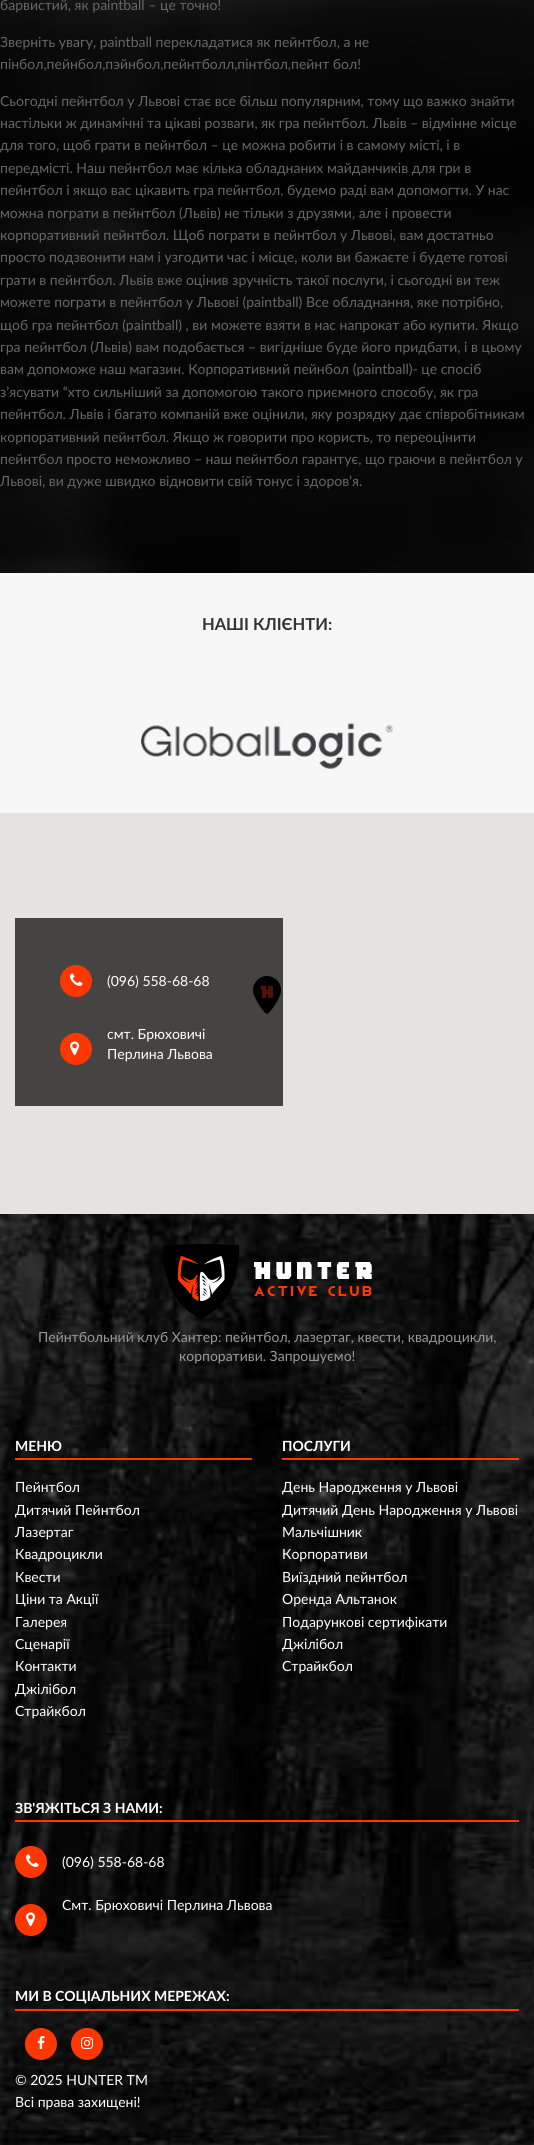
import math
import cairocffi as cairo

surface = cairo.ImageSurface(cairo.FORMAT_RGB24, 534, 2145)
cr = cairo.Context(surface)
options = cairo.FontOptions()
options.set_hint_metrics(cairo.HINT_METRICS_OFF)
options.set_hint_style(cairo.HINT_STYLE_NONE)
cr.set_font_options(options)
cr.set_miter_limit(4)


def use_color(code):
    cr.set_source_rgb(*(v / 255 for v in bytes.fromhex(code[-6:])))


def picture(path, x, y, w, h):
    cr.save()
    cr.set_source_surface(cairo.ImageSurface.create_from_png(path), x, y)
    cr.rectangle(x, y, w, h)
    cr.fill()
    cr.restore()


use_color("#f7f7f7")
cr.paint()
picture("img1.png", 0, 0, 534, 573)
cr.select_font_face("Lato")
cr.set_font_size(14)
use_color("#666666")
cr.move_to(0, 10)
cr.show_text("барвистий, як paintball – це точно!")
cr.move_to(0, 47)
cr.show_text("Зверніть увагу, paintball перекладатися як пейнтбол, а не")
cr.move_to(0, 69)
cr.show_text("пінбол,пейнбол,пэйнбол,пейнтболл,пінтбол,пейнт бол!")
cr.move_to(0, 106)
cr.show_text("Сьогодні пейнтбол у Львові стає все більш популярним, тому що важко знайти")
cr.move_to(0, 128)
cr.show_text("настільки ж динамічні та цікаві розваги, як гра пейнтбол. Львів – відмінне місце")
cr.move_to(0, 150)
cr.show_text("для того, щоб грати в пейнтбол – це можна робити і в самому місті, і в")
cr.move_to(0, 173)
cr.show_text("передмісті. Наш пейнтбол має кілька обладнаних майданчиків для гри в")
cr.move_to(0, 195)
cr.show_text("пейнтбол і якщо вас цікавить гра пейнтбол, будемо раді вам допомогти. У нас")
cr.move_to(0, 218)
cr.show_text("можна пограти в пейнтбол (Львів) не тільки з друзями, але і провести")
cr.move_to(0, 240)
cr.show_text("корпоративний пейнтбол. Щоб пограти в пейнтбол у Львові, вам достатньо")
cr.move_to(0, 262)
cr.show_text("просто подзвонити нам і узгодити час і місце, коли ви бажаєте і будете готові")
cr.move_to(0, 285)
cr.show_text("грати в пейнтбол. Львів вже оцінив зручність такої послуги, і сьогодні ви теж")
cr.move_to(0, 307)
cr.show_text("можете пограти в пейнтбол у Львові (paintball) Все обладнання, яке потрібно,")
cr.move_to(0, 330)
cr.show_text("щоб гра пейнтбол (paintball) , ви можете взяти в нас напрокат або купити. Якщо")
cr.move_to(0, 352)
cr.show_text("гра пейнтбол (Львів) вам подобається – вигідніше буде його придбати, і в цьому")
cr.move_to(0, 374)
cr.show_text("вам допоможе наш магазин. Корпоративний пейнбол (paintball)- це спосіб")
cr.move_to(0, 397)
cr.show_text("з’ясувати “хто сильніший за допомогою такого приємного способу, як гра")
cr.move_to(0, 419)
cr.show_text("пейнтбол. Львів і багато компаній вже оцінили, яку розрядку дає співробітникам")
cr.move_to(0, 442)
cr.show_text("корпоративний пейнтбол. Якщо ж говорити про користь, то переоцінити")
cr.move_to(0, 464)
cr.show_text("пейнтбол просто неможливо – наш пейнтбол гарантує, що граючи в пейнтбол у")
cr.move_to(0, 486)
cr.show_text("Львові, ви дуже швидко відновити свій тонус і здоров’я.")
cr.select_font_face("Lato", cairo.FONT_SLANT_NORMAL, cairo.FONT_WEIGHT_BOLD)
cr.set_font_size(16.5)
use_color("#333333")
cr.move_to(202, 630)
cr.show_text("НАШІ КЛІЄНТИ:")
picture("img2.png", 141, 723, 252, 46)
use_color("#e4e4e4")
cr.rectangle(0, 813, 534, 1)
cr.fill()
use_color("#e5e3df")
cr.rectangle(0, 814, 534, 400)
cr.fill()
use_color("#454443")
cr.rectangle(15, 918, 268, 188)
cr.fill()
picture("img3.png", 253, 976, 28, 38)
use_color("#fe3600")
cr.arc(76, 981, 16, 0, 2 * math.pi)
cr.fill()
picture("img4.png", 70, 973, 13, 13)
cr.select_font_face("Lato")
cr.set_font_size(14)
use_color("#ffffff")
cr.move_to(107, 986)
cr.show_text("(096) 558-68-68")
use_color("#fe3600")
cr.new_path()
cr.arc(76, 1049, 16, 0, 2 * math.pi)
cr.fill()
picture("img5.png", 70, 1041, 10, 15)
use_color("#ffffff")
cr.move_to(107, 1039)
cr.show_text("смт. Брюховичі")
cr.move_to(107, 1059)
cr.show_text("Перлина Львова")
picture("img6.png", 0, 1214, 534, 931)
picture("img7.png", 163, 1244, 209, 75)
use_color("#989898")
cr.move_to(38, 1342)
cr.show_text("Пейнтбольний клуб Хантер: пейнтбол, лазертаг, квести, квадроцикли,")
cr.move_to(179, 1361)
cr.show_text("корпоративи. Запрошуємо!")
use_color("#fe3600")
cr.rectangle(15, 1458, 237, 2)
cr.fill()
cr.select_font_face("Lato", cairo.FONT_SLANT_NORMAL, cairo.FONT_WEIGHT_BOLD)
use_color("#ffffff")
cr.move_to(15, 1451)
cr.show_text("МЕНЮ")
cr.select_font_face("Lato")
cr.move_to(15, 1492)
cr.show_text("Пейнтбол")
cr.move_to(15, 1515)
cr.show_text("Дитячий Пейнтбол")
cr.move_to(15, 1537)
cr.show_text("Лазертаг")
cr.move_to(15, 1559)
cr.show_text("Квадроцикли")
cr.move_to(15, 1582)
cr.show_text("Квести")
cr.move_to(15, 1604)
cr.show_text("Ціни та Акції")
cr.move_to(15, 1627)
cr.show_text("Галерея")
cr.move_to(15, 1649)
cr.show_text("Сценарії")
cr.move_to(15, 1671)
cr.show_text("Контакти")
cr.move_to(15, 1694)
cr.show_text("Джілібол")
cr.move_to(15, 1716)
cr.show_text("Страйкбол")
use_color("#fe3600")
cr.rectangle(282, 1458, 237, 2)
cr.fill()
cr.select_font_face("Lato", cairo.FONT_SLANT_NORMAL, cairo.FONT_WEIGHT_BOLD)
use_color("#ffffff")
cr.move_to(282, 1451)
cr.show_text("ПОСЛУГИ")
cr.select_font_face("Lato")
cr.move_to(282, 1492)
cr.show_text("День Народження у Львові")
cr.move_to(282, 1515)
cr.show_text("Дитячий День Народження у Львові")
cr.move_to(282, 1537)
cr.show_text("Мальчішник")
cr.move_to(282, 1559)
cr.show_text("Корпоративи")
cr.move_to(282, 1582)
cr.show_text("Виїздний пейнтбол")
cr.move_to(282, 1604)
cr.show_text("Оренда Альтанок")
cr.move_to(282, 1627)
cr.show_text("Подарункові сертифікати")
cr.move_to(282, 1649)
cr.show_text("Джілібол")
cr.move_to(282, 1671)
cr.show_text("Страйкбол")
use_color("#fe3600")
cr.rectangle(15, 1820, 504, 2)
cr.fill()
cr.select_font_face("Lato", cairo.FONT_SLANT_NORMAL, cairo.FONT_WEIGHT_BOLD)
use_color("#ffffff")
cr.move_to(15, 1813)
cr.show_text("ЗВ'ЯЖІТЬСЯ З НАМИ:")
use_color("#fe3600")
cr.new_path()
cr.arc(31, 1862, 16, 0, 2 * math.pi)
cr.fill()
picture("img4.png", 26, 1854, 13, 13)
cr.select_font_face("Lato")
use_color("#ffffff")
cr.move_to(62, 1867)
cr.show_text("(096) 558-68-68")
use_color("#fe3600")
cr.new_path()
cr.arc(31, 1920, 16, 0, 2 * math.pi)
cr.fill()
picture("img5.png", 26, 1912, 10, 15)
use_color("#ffffff")
cr.move_to(62, 1910)
cr.show_text("Смт. Брюховичі Перлина Львова")
use_color("#fe3600")
cr.rectangle(15, 2009, 504, 2)
cr.fill()
cr.select_font_face("Lato", cairo.FONT_SLANT_NORMAL, cairo.FONT_WEIGHT_BOLD)
use_color("#ffffff")
cr.move_to(15, 2001)
cr.show_text("МИ В СОЦІАЛЬНИХ МЕРЕЖАХ:")
use_color("#fe3600")
cr.new_path()
cr.arc(41, 2044, 16, 0, 2 * math.pi)
cr.fill()
picture("img8.png", 37, 2036, 8, 13)
cr.arc(87, 2044, 16, 0, 2 * math.pi)
cr.fill()
picture("img9.png", 81, 2037, 12, 12)
cr.select_font_face("Lato")
use_color("#ffffff")
cr.move_to(15, 2085)
cr.show_text("© 2025 HUNTER TM")
cr.move_to(15, 2107)
cr.show_text("Всі права захищені!")
surface.write_to_png("result.png")
